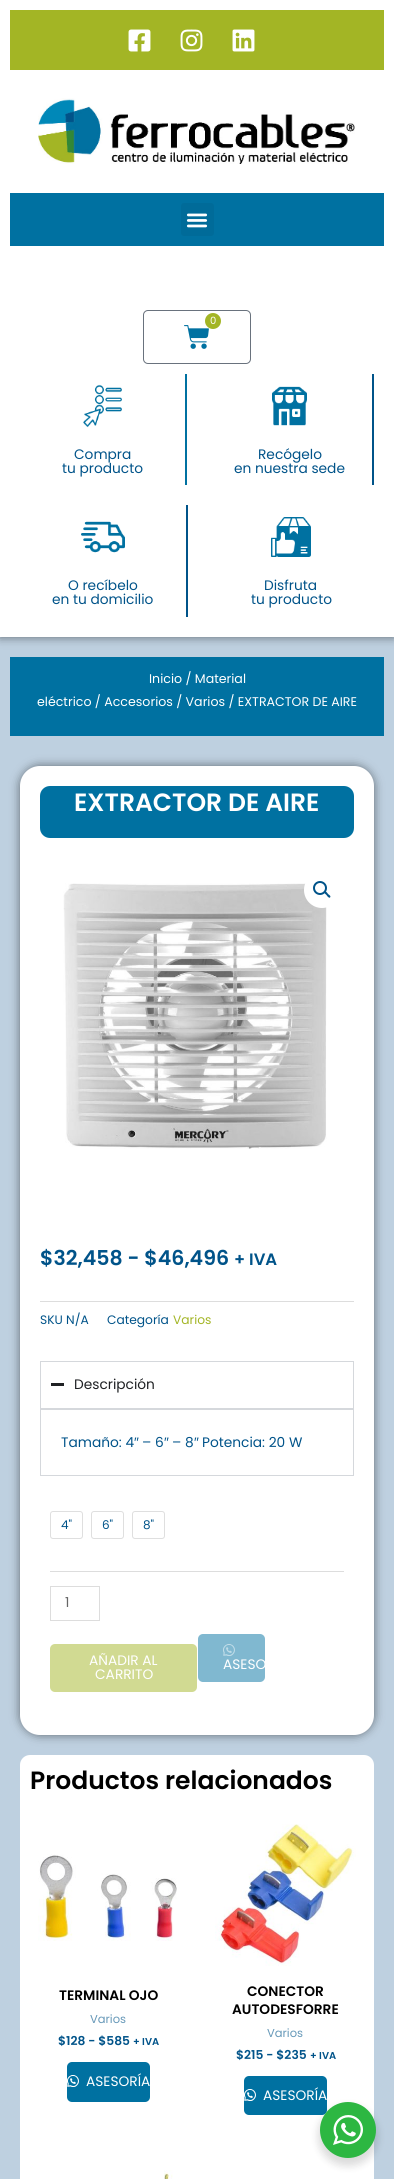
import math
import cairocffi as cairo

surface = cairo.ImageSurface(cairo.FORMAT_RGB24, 394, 2179)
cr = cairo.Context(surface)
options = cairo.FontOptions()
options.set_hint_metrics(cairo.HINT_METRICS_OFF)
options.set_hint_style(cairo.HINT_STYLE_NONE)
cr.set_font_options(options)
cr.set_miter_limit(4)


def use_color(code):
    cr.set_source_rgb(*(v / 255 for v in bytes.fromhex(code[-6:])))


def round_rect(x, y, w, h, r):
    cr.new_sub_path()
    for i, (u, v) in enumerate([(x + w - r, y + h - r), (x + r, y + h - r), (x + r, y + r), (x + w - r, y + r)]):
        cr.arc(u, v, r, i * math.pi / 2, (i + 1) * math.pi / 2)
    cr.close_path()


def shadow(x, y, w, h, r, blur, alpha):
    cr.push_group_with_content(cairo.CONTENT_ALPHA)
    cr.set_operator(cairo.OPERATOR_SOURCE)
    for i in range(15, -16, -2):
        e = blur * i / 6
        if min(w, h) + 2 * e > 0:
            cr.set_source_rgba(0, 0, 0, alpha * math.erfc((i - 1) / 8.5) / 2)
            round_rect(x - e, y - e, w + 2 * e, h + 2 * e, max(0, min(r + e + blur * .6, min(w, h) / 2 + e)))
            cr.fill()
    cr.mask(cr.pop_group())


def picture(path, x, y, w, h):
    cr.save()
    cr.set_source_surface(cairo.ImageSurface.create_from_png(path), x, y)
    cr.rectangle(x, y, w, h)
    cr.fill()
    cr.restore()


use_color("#bed0e0")
cr.paint()
use_color("#000000")
shadow(0, 0, 394, 637, 0, 5, 0.5)
use_color("#ffffff")
cr.rectangle(0, 0, 394, 637)
cr.fill()
use_color("#a3b525")
cr.rectangle(10, 10, 374, 60)
cr.fill()
picture("img1.png", 128, 29, 23, 23)
picture("img2.png", 180, 29, 23, 23)
picture("img3.png", 232, 29, 23, 23)
picture("img4.png", 38, 98, 317, 66)
use_color("#0071a1")
cr.rectangle(10, 193, 374, 53)
cr.fill()
use_color("#006b99")
round_rect(181, 203, 33, 33, 3)
cr.fill()
picture("img5.png", 186, 213, 22, 15)
round_rect(143.5, 310.5, 107, 53, 4.5)
use_color("#69727d")
cr.set_line_width(1)
cr.stroke()
picture("img6.png", 184, 325, 25, 24)
use_color("#a3b525")
cr.arc(213, 321, 8, 0, 2 * math.pi)
cr.fill()
cr.select_font_face("Poppins")
cr.set_font_size(10)
use_color("#ffffff")
cr.move_to(210, 324)
cr.show_text("0")
use_color("#0071a1")
cr.rectangle(185, 374, 2, 111)
cr.fill()
picture("img7.png", 83, 384, 39, 44)
cr.set_font_size(13.75)
use_color("#005389")
cr.move_to(74, 459)
cr.show_text("Compra")
cr.move_to(62, 473)
cr.show_text("tu producto")
cr.rectangle(372, 374, 2, 111)
cr.fill()
picture("img8.png", 272, 386, 35, 40)
cr.move_to(258, 459)
cr.show_text("Recógelo")
cr.move_to(234, 473)
cr.show_text("en nuestra sede")
cr.rectangle(186, 505, 2, 112)
cr.fill()
picture("img9.png", 81, 521, 44, 32)
cr.move_to(68, 590)
cr.show_text("O recíbelo")
cr.move_to(52, 604)
cr.show_text("en tu domicilio")
picture("img10.png", 271, 517, 40, 40)
cr.move_to(264, 590)
cr.show_text("Disfruta")
cr.move_to(251, 604)
cr.show_text("tu producto")
use_color("#0071a1")
cr.rectangle(10, 657, 374, 79)
cr.fill()
cr.set_font_size(12.6)
use_color("#ffffff")
cr.move_to(149, 683)
cr.show_text("Inicio / Material")
cr.move_to(37, 706)
cr.show_text("eléctrico / Accesorios / Varios / EXTRACTOR DE AIRE")
use_color("#000000")
shadow(20, 766, 354, 969, 20, 5, 0.5)
use_color("#ffffff")
round_rect(20, 766, 354, 969, 20)
cr.fill()
use_color("#0071a1")
round_rect(40, 786, 314, 52, 10)
cr.fill()
cr.select_font_face("Poppins SemiBold")
cr.set_font_size(25)
use_color("#ffffff")
cr.move_to(74, 811)
cr.show_text("EXTRACTOR DE AIRE")
picture("img11.png", 63, 883, 264, 266)
cr.arc(322, 890, 18, 0, 2 * math.pi)
cr.fill()
cr.arc(320, 888, 6, 0, 2 * math.pi)
use_color("#005389")
cr.set_line_width(2)
cr.stroke()
cr.new_path()
cr.move_to(324.5, 891.5)
cr.curve_to(325.5, 890.5, 327.5, 893, 328, 894)
cr.curve_to(328.5, 894.5, 331.5, 896, 330, 897.5)
cr.curve_to(329, 898.5, 327, 896, 326.5, 895)
cr.curve_to(326, 894.5, 323.5, 893, 324.5, 891.5)
cr.close_path()
cr.fill()
cr.set_font_size(20.5)
cr.move_to(40, 1265)
cr.show_text("$32,458 - $46,496")
cr.set_font_size(16.5)
cr.move_to(234, 1265)
cr.show_text("+ IVA")
use_color("#dddddd")
cr.rectangle(40, 1301, 314, 1)
cr.fill()
cr.select_font_face("Poppins")
cr.set_font_size(12.25)
use_color("#005389")
cr.move_to(40, 1324)
cr.show_text("SKU N/A")
cr.move_to(107, 1324)
cr.show_text("Categoría")
use_color("#a3b525")
cr.move_to(173, 1324)
cr.show_text("Varios")
cr.rectangle(40.5, 1361.5, 313, 47)
use_color("#d5d8dc")
cr.set_line_width(1)
cr.stroke()
use_color("#1f2124")
cr.rectangle(51, 1383, 13, 3)
cr.fill()
cr.set_font_size(13.75)
cr.move_to(74, 1389)
cr.show_text("Descripción")
cr.rectangle(40.5, 1409.5, 313, 66)
use_color("#d5d8dc")
cr.stroke()
use_color("#005389")
cr.move_to(61, 1447)
cr.show_text("Tamaño: 4")
cr.select_font_face("Liberation Sans")
cr.move_to(134, 1447)
cr.show_text("″")
cr.select_font_face("Poppins")
cr.move_to(142, 1447)
cr.show_text("– 6")
cr.select_font_face("Liberation Sans")
cr.move_to(164, 1447)
cr.show_text("″")
cr.select_font_face("Poppins")
cr.move_to(172, 1447)
cr.show_text("– 8")
cr.select_font_face("Liberation Sans")
cr.move_to(194, 1447)
cr.show_text("″")
cr.select_font_face("Poppins")
cr.move_to(202, 1447)
cr.show_text("Potencia: 20 W")
use_color("#dddddd")
cr.rectangle(50, 1571, 294, 1)
cr.fill()
round_rect(50.5, 1511.5, 32, 27, 2.5)
use_color("#dfdfdf")
cr.stroke()
cr.set_font_size(12)
use_color("#005389")
cr.move_to(61, 1529)
cr.show_text("4\"")
round_rect(91.5, 1511.5, 32, 27, 2.5)
use_color("#dfdfdf")
cr.stroke()
use_color("#005389")
cr.move_to(102, 1529)
cr.show_text("6\"")
round_rect(132.5, 1511.5, 32, 27, 2.5)
use_color("#dfdfdf")
cr.stroke()
use_color("#005389")
cr.move_to(143, 1529)
cr.show_text("8\"")
cr.rectangle(50.5, 1586.5, 49, 34)
use_color("#dddddd")
cr.stroke()
cr.set_font_size(13.75)
use_color("#666666")
cr.move_to(65, 1607)
cr.show_text("1")
use_color("#d1da92")
round_rect(50, 1644, 147, 48, 5)
cr.fill()
use_color("#ffffff")
cr.move_to(89, 1665)
cr.show_text("AÑADIR AL")
cr.move_to(95, 1679)
cr.show_text("CARRITO")
use_color("#80b8d0")
round_rect(198, 1634, 67, 48, 5)
cr.fill()
picture("img12.png", 223, 1644, 12, 12)
use_color("#ffffff")
cr.move_to(223, 1669)
cr.show_text("ASESO")
round_rect(20, 1755, 354, 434, 10)
cr.fill()
cr.select_font_face("Poppins SemiBold")
cr.set_font_size(25)
use_color("#000000")
cr.move_to(30, 1789)
cr.show_text("Productos relacionados")
picture("img13.png", 38, 1854, 139, 87)
cr.set_font_size(13.75)
cr.move_to(59, 2000)
cr.show_text("TERMINAL OJO")
cr.select_font_face("Poppins")
cr.set_font_size(11.5)
use_color("#6698b8")
cr.move_to(90, 2023)
cr.show_text("Varios")
cr.select_font_face("Poppins SemiBold")
cr.set_font_size(12.25)
use_color("#005389")
cr.move_to(58, 2045)
cr.show_text("$128 - $585")
cr.set_font_size(10)
cr.move_to(133, 2045)
cr.show_text("+ IVA")
use_color("#0071a1")
round_rect(67, 2062, 83, 40, 5)
cr.fill()
picture("img14.png", 67, 2075, 12, 12)
cr.select_font_face("Poppins")
cr.set_font_size(13.75)
use_color("#ffffff")
cr.move_to(86, 2086)
cr.show_text("ASESORÍA")
picture("img15.png", 215, 1824, 141, 142)
cr.select_font_face("Poppins SemiBold")
use_color("#000000")
cr.move_to(247, 1996)
cr.show_text("CONECTOR")
cr.move_to(232, 2014)
cr.show_text("AUTODESFORRE")
cr.select_font_face("Poppins")
cr.set_font_size(11.5)
use_color("#6698b8")
cr.move_to(267, 2037)
cr.show_text("Varios")
cr.select_font_face("Poppins SemiBold")
cr.set_font_size(12.25)
use_color("#005389")
cr.move_to(236, 2059)
cr.show_text("$215 - $235")
cr.set_font_size(10)
cr.move_to(310, 2059)
cr.show_text("+ IVA")
use_color("#0071a1")
round_rect(244, 2076, 83, 39, 5)
cr.fill()
picture("img16.png", 244, 2089, 12, 12)
cr.select_font_face("Poppins")
cr.set_font_size(13.75)
use_color("#ffffff")
cr.move_to(263, 2100)
cr.show_text("ASESORÍA")
picture("img17.png", 164, 2170, 9, 9)
use_color("#000000")
shadow(318, 2106, 60, 60, 30, 4, 0.14)
use_color("#2db742")
cr.arc(348, 2130, 28, 0, 2 * math.pi)
cr.fill()
picture("img18.png", 333, 2115, 30, 30)
surface.write_to_png("result.png")
